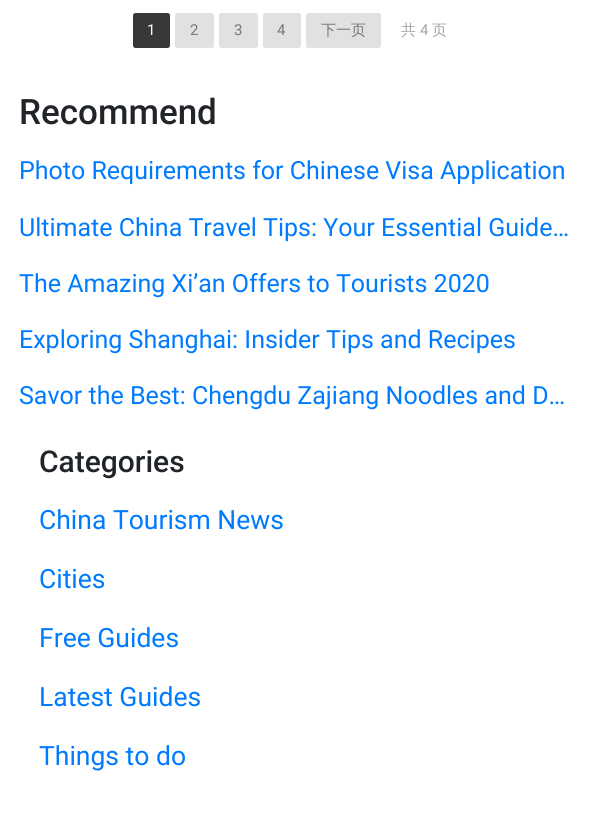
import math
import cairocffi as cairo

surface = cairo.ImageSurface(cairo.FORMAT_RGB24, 593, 835)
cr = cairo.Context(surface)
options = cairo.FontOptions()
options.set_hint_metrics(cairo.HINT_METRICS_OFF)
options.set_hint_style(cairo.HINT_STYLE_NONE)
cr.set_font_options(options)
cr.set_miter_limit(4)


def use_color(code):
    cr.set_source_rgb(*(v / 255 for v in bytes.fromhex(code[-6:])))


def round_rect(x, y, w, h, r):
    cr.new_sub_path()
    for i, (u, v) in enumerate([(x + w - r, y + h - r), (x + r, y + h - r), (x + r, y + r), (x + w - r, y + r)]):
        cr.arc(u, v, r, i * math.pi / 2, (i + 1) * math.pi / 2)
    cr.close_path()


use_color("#ffffff")
cr.paint()
use_color("#383838")
round_rect(133, 13, 37, 35, 2.5)
cr.fill()
cr.select_font_face("Roboto")
cr.set_font_size(15)
use_color("#ffffff")
cr.move_to(147, 35)
cr.show_text("1")
use_color("#e1e1e1")
round_rect(175, 13, 39, 35, 2.5)
cr.fill()
use_color("#787878")
cr.move_to(190, 35)
cr.show_text("2")
use_color("#e1e1e1")
round_rect(219, 13, 39, 35, 2.5)
cr.fill()
use_color("#787878")
cr.move_to(234, 35)
cr.show_text("3")
use_color("#e1e1e1")
round_rect(263, 13, 38, 35, 2.5)
cr.fill()
use_color("#787878")
cr.move_to(277, 35)
cr.show_text("4")
use_color("#e1e1e1")
round_rect(306, 13, 75, 35, 2.5)
cr.fill()
cr.select_font_face("WenQuanYi Zen Hei Medium")
use_color("#787878")
cr.move_to(321, 35)
cr.show_text("下一页")
use_color("#a5a5a5")
cr.move_to(401, 35)
cr.show_text("共")
cr.select_font_face("Roboto")
cr.move_to(420, 35)
cr.show_text("4")
cr.select_font_face("WenQuanYi Zen Hei Medium")
cr.move_to(432, 35)
cr.show_text("页")
cr.select_font_face("Roboto Medium")
cr.set_font_size(35)
use_color("#212529")
cr.move_to(19, 124)
cr.show_text("Recommend")
cr.select_font_face("Roboto")
cr.set_font_size(25)
use_color("#007bff")
cr.move_to(19, 179)
cr.show_text("Photo Requirements for Chinese Visa Application")
cr.move_to(19, 236)
cr.show_text("Ultimate China Travel Tips: Your Essential Guide…")
cr.move_to(19, 292)
cr.show_text("The Amazing Xi’an Offers to Tourists 2020")
cr.move_to(19, 348)
cr.show_text("Exploring Shanghai: Insider Tips and Recipes")
cr.move_to(19, 404)
cr.show_text("Savor the Best: Chengdu Zajiang Noodles and D…")
cr.select_font_face("Roboto Medium")
cr.set_font_size(30)
use_color("#212529")
cr.move_to(39, 472)
cr.show_text("Categories")
cr.select_font_face("Roboto")
cr.set_font_size(26.5)
use_color("#007bff")
cr.move_to(39, 529)
cr.show_text("China Tourism News")
cr.move_to(39, 588)
cr.show_text("Cities")
cr.move_to(39, 647)
cr.show_text("Free Guides")
cr.move_to(39, 706)
cr.show_text("Latest Guides")
cr.move_to(39, 765)
cr.show_text("Things to do")
surface.write_to_png("result.png")
